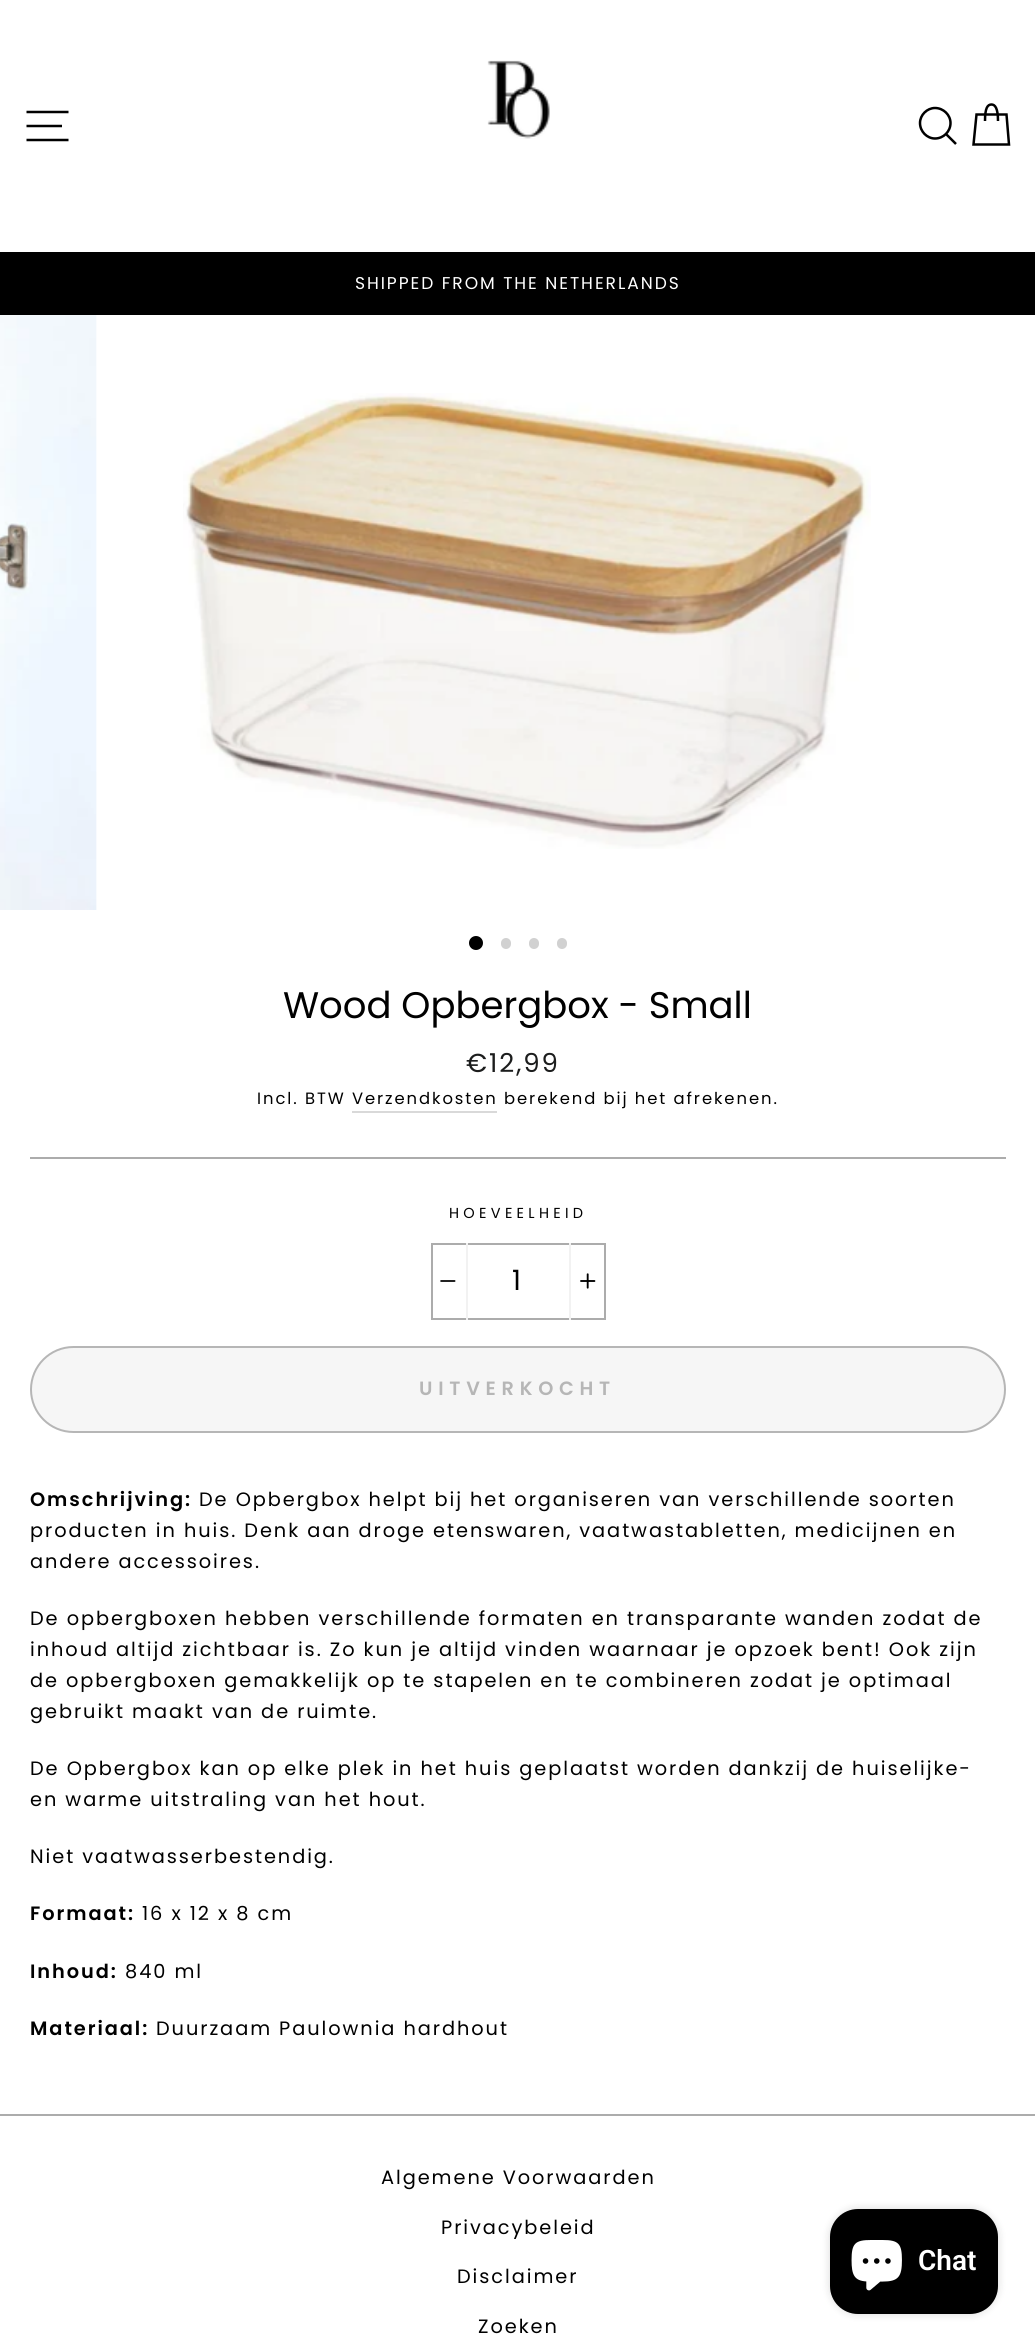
import math
import cairocffi as cairo

surface = cairo.ImageSurface(cairo.FORMAT_RGB24, 1035, 2349)
cr = cairo.Context(surface)
options = cairo.FontOptions()
options.set_hint_metrics(cairo.HINT_METRICS_OFF)
options.set_hint_style(cairo.HINT_STYLE_NONE)
cr.set_font_options(options)
cr.set_miter_limit(4)


def use_color(code):
    cr.set_source_rgb(*(v / 255 for v in bytes.fromhex(code[-6:])))


def spaced_text(x, y, s, letter, word):
    cr.move_to(x, y)
    for ch in s:
        cr.show_text(ch)
        cr.rel_move_to(letter + word * (ch == ' '), 0)


def round_rect(x, y, w, h, r):
    cr.new_sub_path()
    for i, (u, v) in enumerate([(x + w - r, y + h - r), (x + r, y + h - r), (x + r, y + r), (x + w - r, y + r)]):
        cr.arc(u, v, r, i * math.pi / 2, (i + 1) * math.pi / 2)
    cr.close_path()


def shadow(x, y, w, h, r, blur, alpha):
    cr.push_group_with_content(cairo.CONTENT_ALPHA)
    cr.set_operator(cairo.OPERATOR_SOURCE)
    for i in range(15, -16, -2):
        e = blur * i / 6
        if min(w, h) + 2 * e > 0:
            cr.set_source_rgba(0, 0, 0, alpha * math.erfc((i - 1) / 8.5) / 2)
            round_rect(x - e, y - e, w + 2 * e, h + 2 * e, max(0, min(r + e + blur * .6, min(w, h) / 2 + e)))
            cr.fill()
    cr.mask(cr.pop_group())


def picture(path, x, y, w, h):
    cr.save()
    cr.set_source_surface(cairo.ImageSurface.create_from_png(path), x, y)
    cr.rectangle(x, y, w, h)
    cr.fill()
    cr.restore()


use_color("#ffffff")
cr.paint()
cr.new_path()
cr.move_to(26.5, 112)
cr.line_to(68.5, 112)
cr.move_to(26.5, 126)
cr.line_to(62, 126)
cr.move_to(26.5, 140)
cr.line_to(68.5, 140)
use_color("#000000")
cr.set_line_width(2.5)
cr.stroke()
picture("img1.png", 487, 60, 63, 79)
cr.new_path()
cr.move_to(950.5, 123)
cr.curve_to(950.5, 131.5, 943.5, 138.5, 935, 138.5)
cr.curve_to(927, 138.5, 920, 131.5, 920, 123)
cr.curve_to(920, 115, 927, 108, 935, 108)
cr.curve_to(943.5, 108, 950.5, 115, 950.5, 123)
cr.close_path()
cr.move_to(956, 144)
cr.line_to(946, 134)
cr.stroke()
cr.new_path()
cr.move_to(985, 121)
cr.curve_to(985, 108, 987.5, 104.5, 991.5, 104.5)
cr.curve_to(995, 104.5, 998, 108, 998, 121)
cr.move_to(976.5, 114.5)
cr.line_to(1006.5, 114.5)
cr.line_to(1009, 144.5)
cr.line_to(973.5, 144.5)
cr.close_path()
cr.stroke()
cr.rectangle(0, 252, 1035, 63)
cr.fill()
cr.select_font_face("Poppins")
cr.set_font_size(17.1)
use_color("#ffffff")
spaced_text(355, 289, "SHIPPED FROM THE NETHERLANDS", 1.93, 0)
picture("img2.png", 0, 315, 97, 595)
picture("img3.png", 183, 393, 688, 456)
use_color("#000000")
cr.arc(476, 943, 7, 0, 2 * math.pi)
cr.fill()
use_color("#d1d1d1")
round_rect(501, 938, 10, 11, 5)
cr.fill()
round_rect(529, 938, 10, 11, 5)
cr.fill()
round_rect(557, 938, 10, 11, 5)
cr.fill()
cr.set_font_size(37)
use_color("#000000")
cr.move_to(283, 1018)
cr.show_text("Wood Opbergbox - Small")
cr.set_font_size(26)
use_color("#1c1d1d")
spaced_text(466, 1072, "€12,99", 1.93, 0)
cr.set_font_size(16.4)
use_color("#000000")
spaced_text(257, 1104, "Incl. BTW Verzendkosten", 1.93, 0)
spaced_text(504, 1104, "berekend bij het afrekenen.", 1.93, 0)
use_color("#d9d9d9")
cr.rectangle(352, 1111, 145, 2)
cr.fill()
use_color("#acacac")
cr.rectangle(30, 1157, 976, 2)
cr.fill()
cr.set_font_size(14.5)
use_color("#000000")
spaced_text(449, 1218, "HOEVEELHEID", 4.3, 0)
cr.rectangle(432, 1244, 173, 75)
use_color("#acacac")
cr.set_line_width(2)
cr.stroke()
use_color("#f2f2f2")
cr.rectangle(466, 1243, 2, 77)
cr.fill()
picture("img4.png", 440, 1280, 16, 2)
cr.set_font_size(28)
use_color("#000000")
spaced_text(512, 1290, "1", 3, 0)
use_color("#f2f2f2")
cr.rectangle(569, 1243, 2, 77)
cr.fill()
picture("img5.png", 580, 1273, 16, 16)
use_color("#f6f6f6")
round_rect(31, 1347, 974, 85, 42.5)
cr.fill_preserve()
use_color("#b6b6b6")
cr.stroke()
cr.select_font_face("Poppins SemiBold")
cr.set_font_size(19.25)
spaced_text(419, 1395, "UITVERKOCHT", 5.75, 0)
cr.set_font_size(19.35)
use_color("#000000")
spaced_text(30, 1506, "Omschrijving:", 1.93, 0)
cr.select_font_face("Poppins")
spaced_text(199, 1506, "De Opbergbox helpt bij het organiseren van verschillende soorten", 1.93, 0)
spaced_text(30, 1537, "producten in huis. Denk aan droge etenswaren, vaatwastabletten, medicijnen en", 1.93, 0)
spaced_text(30, 1568, "andere accessoires.", 1.93, 0)
spaced_text(30, 1625, "De opbergboxen hebben verschillende formaten en transparante wanden zodat de", 1.93, 0)
spaced_text(30, 1656, "inhoud altijd zichtbaar is. Zo kun je altijd vinden waarnaar je opzoek bent! Ook zijn", 1.93, 0)
spaced_text(30, 1687, "de opbergboxen gemakkelijk op te stapelen en te combineren zodat je optimaal", 1.93, 0)
spaced_text(30, 1718, "gebruikt maakt van de ruimte.", 1.93, 0)
spaced_text(30, 1775, "De Opbergbox kan op elke plek in het huis geplaatst worden dankzij de huiselijke-", 1.93, 0)
spaced_text(30, 1806, "en warme uitstraling van het hout.", 1.93, 0)
spaced_text(30, 1863, "Niet vaatwasserbestendig.", 1.93, 0)
cr.select_font_face("Poppins SemiBold")
spaced_text(30, 1920, "Formaat:", 1.93, 0)
cr.select_font_face("Poppins")
spaced_text(142, 1920, "16 x 12 x 8 cm", 1.93, 0)
cr.select_font_face("Poppins SemiBold")
spaced_text(30, 1978, "Inhoud:", 1.93, 0)
cr.select_font_face("Poppins")
spaced_text(125, 1978, "840 ml", 1.93, 0)
cr.select_font_face("Poppins SemiBold")
spaced_text(30, 2035, "Materiaal:", 1.93, 0)
cr.select_font_face("Poppins")
spaced_text(156, 2035, "Duurzaam Paulownia hardhout", 1.93, 0)
use_color("#acacac")
cr.rectangle(0, 2114, 1035, 2)
cr.fill()
use_color("#000000")
spaced_text(381, 2184, "Algemene Voorwaarden", 1.93, 0)
spaced_text(441, 2234, "Privacybeleid", 1.93, 0)
spaced_text(457, 2283, "Disclaimer", 1.93, 0)
spaced_text(478, 2333, "Zoeken", 1.93, 0)
use_color("#000000")
shadow(830, 2209, 168, 105, 28, 4.5, 0.15)
use_color("#000000")
round_rect(830, 2209, 168, 105, 28)
cr.fill()
picture("img6.png", 851, 2240, 51, 51)
cr.select_font_face("Roboto SemiBold")
cr.set_font_size(28)
use_color("#ffffff")
cr.move_to(918, 2270)
cr.show_text("Chat")
surface.write_to_png("result.png")
